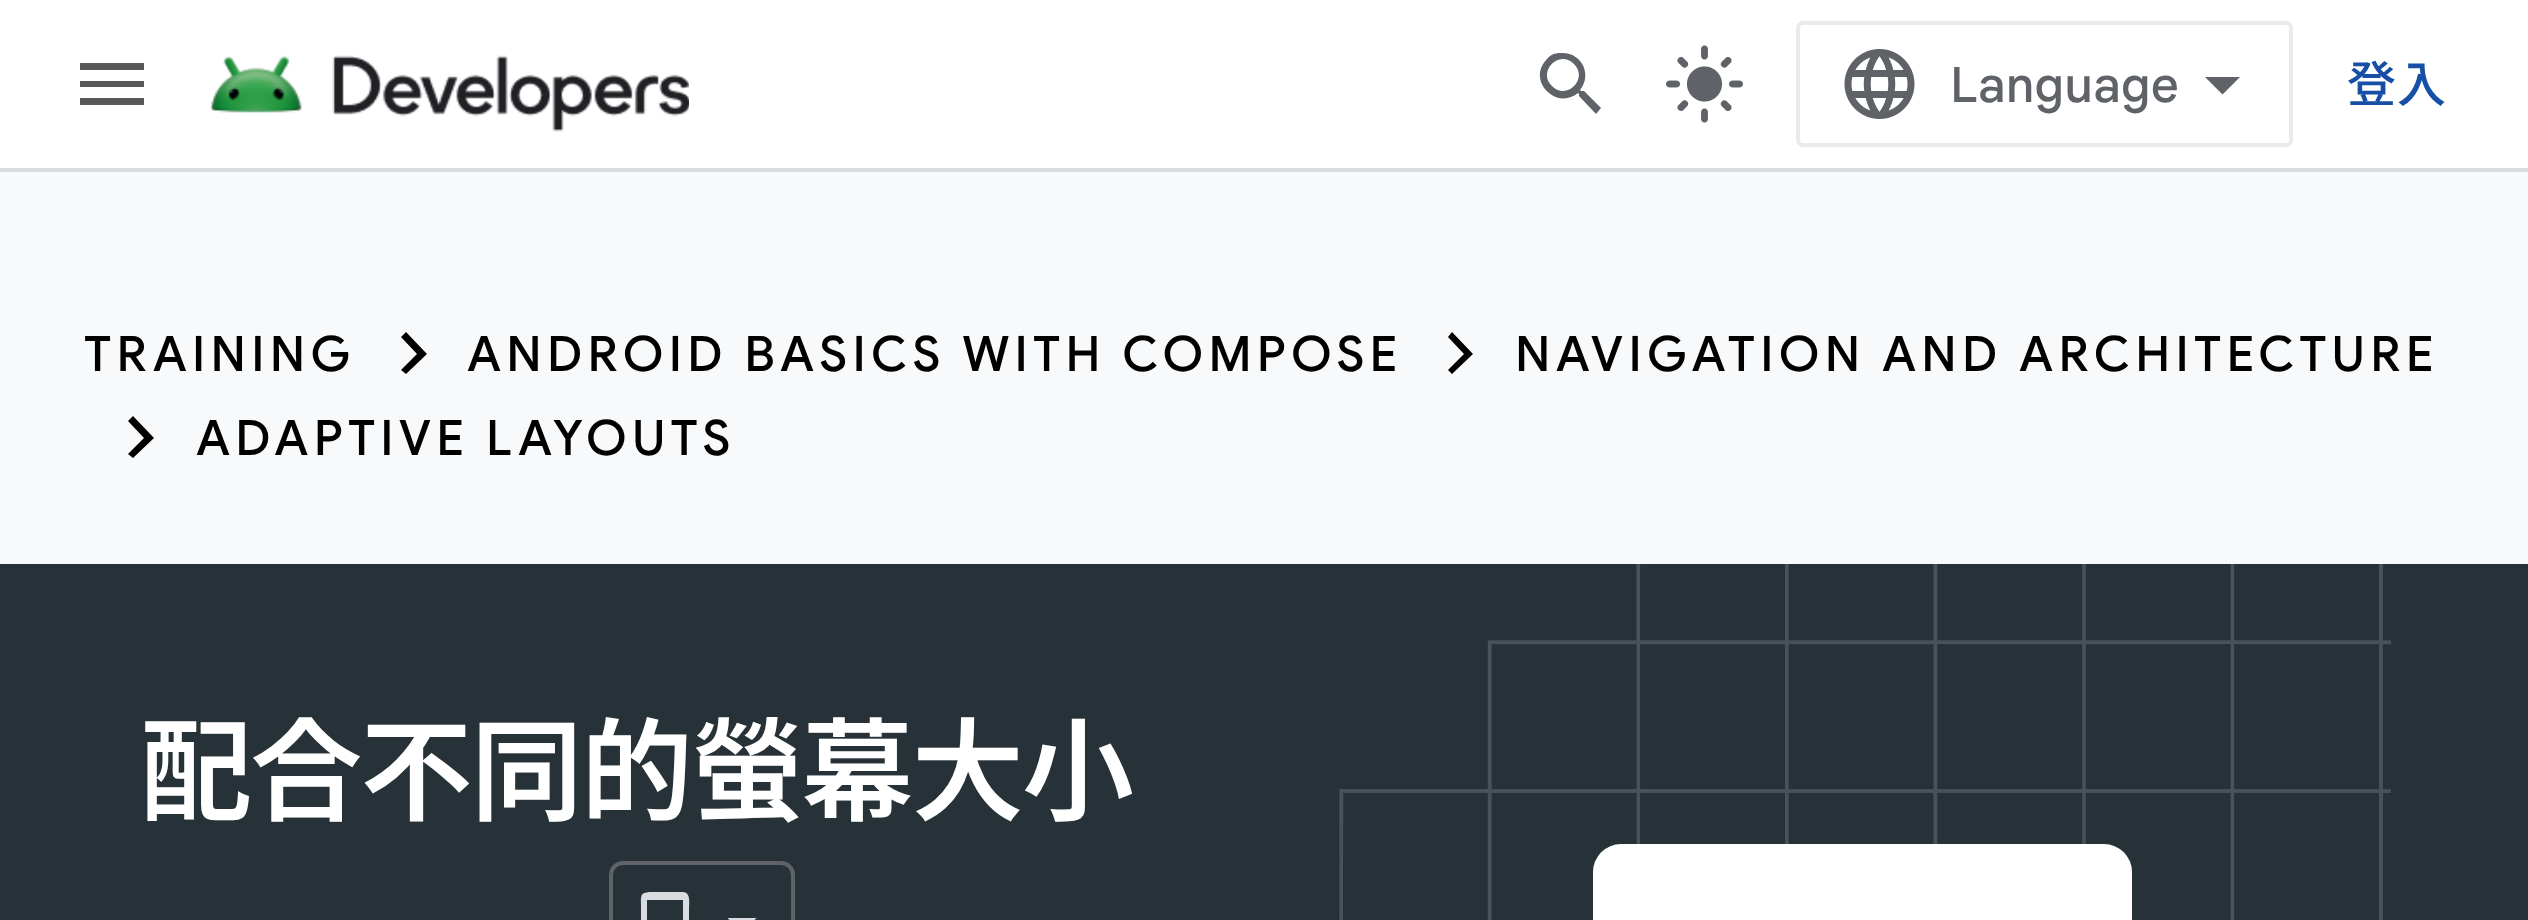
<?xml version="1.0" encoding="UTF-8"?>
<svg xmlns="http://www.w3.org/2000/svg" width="2528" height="920">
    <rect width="100%" height="100%" fill="#FFFFFF"/>
    <rect x="0" y="168" width="2528" height="4" fill="#DADCE0"/>
    <path d="M 80 63 H 144 V 70 H 80 Z M 80 87 V 81 H 144 V 87 Z M 80 105 V 98 H 144 V 105 Z" fill="#595959"/>
    <image x="210" y="55" width="479" height="77" href="img_01.png"/>
    <path d="M 1552 86 C 1566 101 1589 79 1574 64 C 1559 49 1537 72 1552 86 Z M 1584 91 L 1601 108 L 1596 114 L 1579 96 V 94 L 1578 93 C 1556 111 1526 80 1547 59 C 1550 55 1555 53 1560 53 C 1581 51 1593 74 1580 90 L 1581 91 Z" fill="#5F6368"/>
    <image x="1666" y="45" width="77" height="78" href="img_02.png"/>
    <rect x="1798" y="23" width="493" height="122" rx="5" fill="none" stroke="#E8EAED" stroke-width="4"/>
    <image x="1844" y="49" width="71" height="70" href="img_03.png"/>
    <text x="1950" y="102" font-family="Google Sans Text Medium" font-size="49" font-weight="500" fill="#5F6368">Language</text>
    <path d="M 2222.5 94.5 L 2205 77 H 2240 Z" fill="#5F6368"/>
    <text x="2347" y="102" font-family="Noto Sans JP" font-size="49" font-weight="500" letter-spacing="1" fill="#174EA6">登入</text>
    <rect x="0" y="172" width="2528" height="392" fill="#F8F9FA"/>
    <text x="84" y="371" font-family="Google Sans" font-size="49" font-weight="500" letter-spacing="5.25" fill="#000000">TRAINING</text>
    <path d="M 406 332 L 427 354 L 406 374 L 401 370 L 417 354 L 401 337 Z" fill="#000000"/>
    <text x="467" y="371" font-family="Google Sans" font-size="49" font-weight="500" letter-spacing="5.25" fill="#000000">ANDROID BASICS WITH COMPOSE</text>
    <path d="M 1452 332 L 1473 354 L 1452 374 L 1448 370 L 1464 354 L 1448 337 Z" fill="#000000"/>
    <text x="1515" y="371" font-family="Google Sans" font-size="49" font-weight="500" letter-spacing="5.25" fill="#000000">NAVIGATION AND ARCHITECTURE</text>
    <path d="M 133 416 L 154 438 L 133 458 L 128 454 L 144 438 L 128 421 Z" fill="#000000"/>
    <text x="196" y="455" font-family="Google Sans" font-size="49" font-weight="500" letter-spacing="5.25" fill="#000000">ADAPTIVE LAYOUTS</text>
    <rect x="0" y="564" width="2528" height="356" fill="#263238"/>
    <text x="140" y="812" font-family="Noto Sans JP" font-size="112" font-weight="600" letter-spacing="-1.75" fill="#FFFFFF">配合不同的螢幕大小</text>
    <rect x="611" y="863" width="182" height="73" rx="12" fill="none" stroke="#5F6368" stroke-width="4"/>
    <path d="M 683 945 V 900 H 647 V 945 L 665 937 Z M 683 892 C 691 892 689 904 689 909 V 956 L 665 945 L 641 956 V 909 C 641 895 639 892 653 892 Z" fill="#DADCE0"/>
    <path d="M 727.5 918 H 756.5 L 742 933 Z" fill="#DADCE0"/>
    <image x="1339" y="564" width="1052" height="356" href="img_04.png"/>
    <rect x="1593" y="844" width="539" height="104" rx="28" fill="#FFFFFF"/>
</svg>
